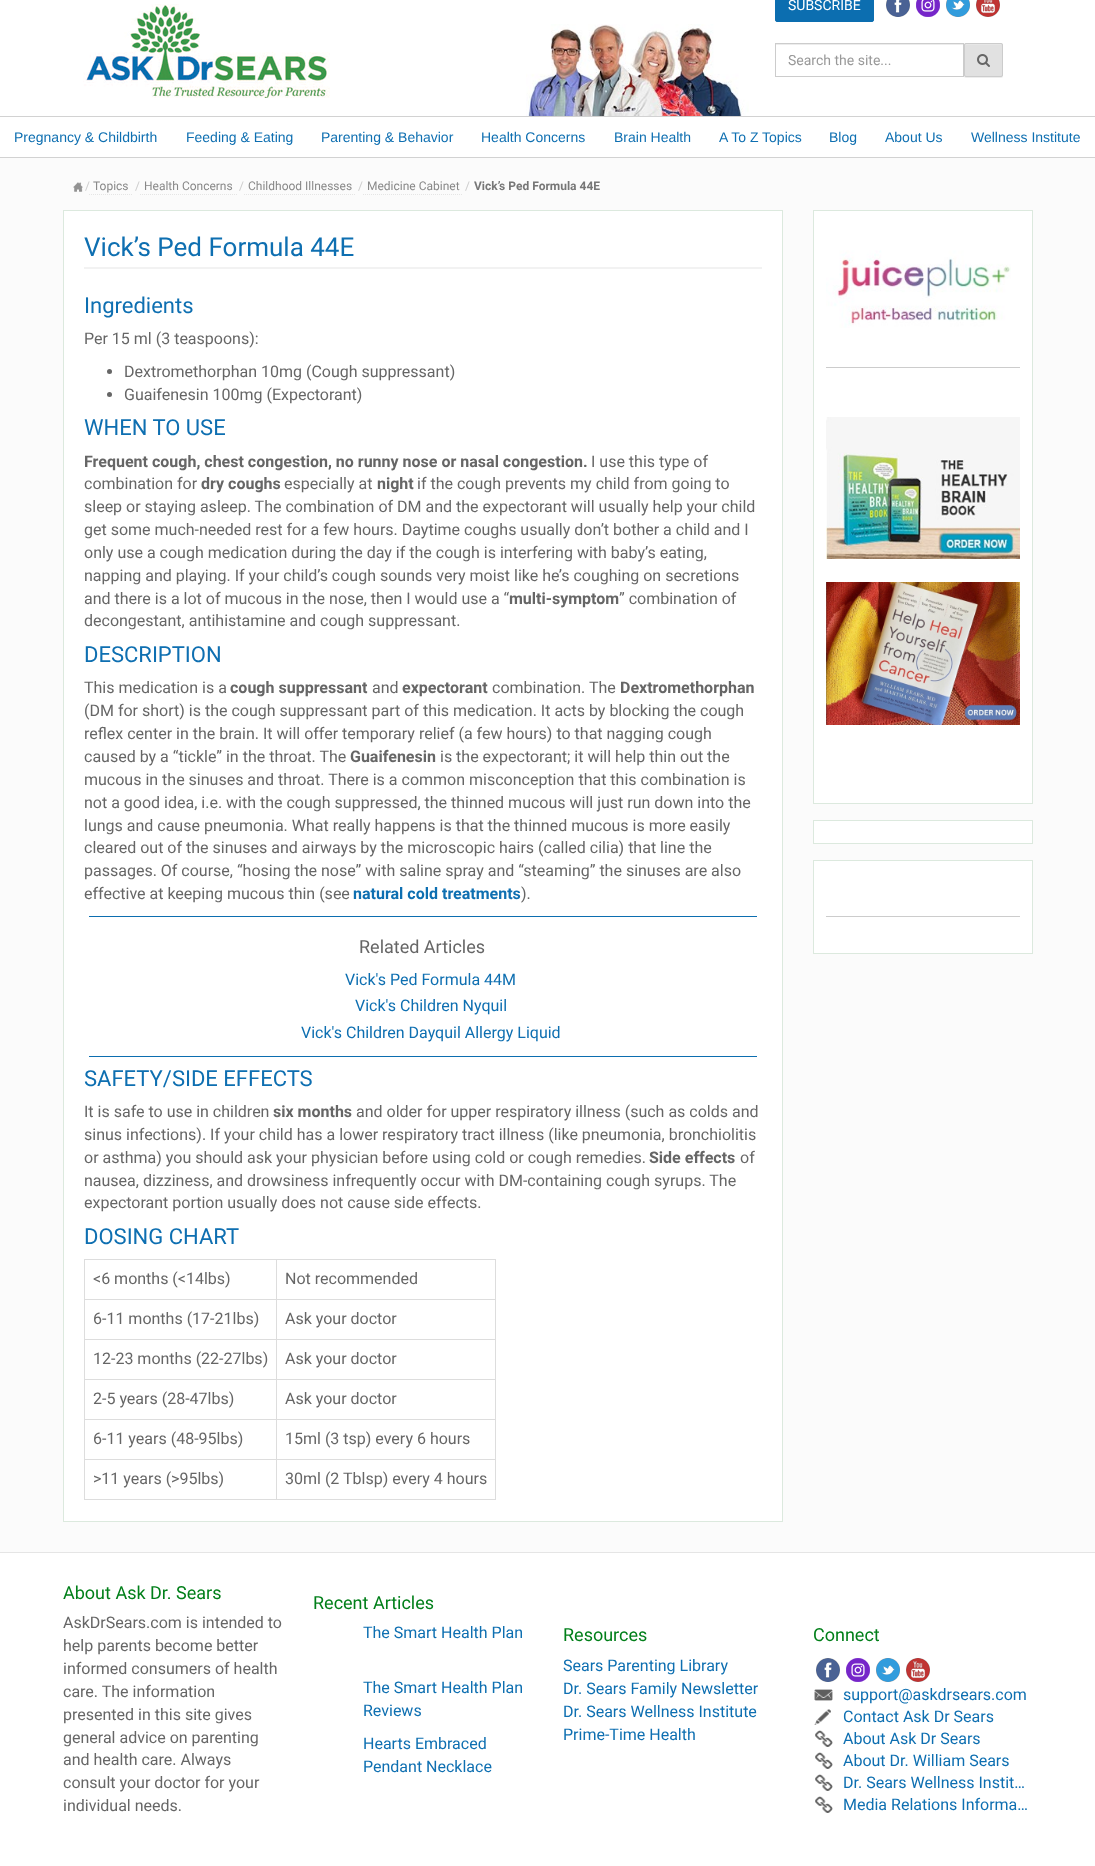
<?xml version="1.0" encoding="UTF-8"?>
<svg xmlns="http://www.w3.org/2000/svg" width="1095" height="1866">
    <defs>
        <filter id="blur1" x="-50%" y="-200%" width="200%" height="500%"><feGaussianBlur stdDeviation="0.5"/></filter>
    </defs>
    <rect width="100%" height="100%" fill="#FFFFFF"/>
    <rect x="0" y="157" width="1095" height="1" fill="#D2D2D2"/>
    <image x="83" y="4" width="247" height="94" href="img_01.png"/>
    <rect x="775.5" y="-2.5" width="98" height="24" rx="1.5" fill="#0C6EB0" stroke="#0C6EB0"/>
    <text x="788" y="10" font-family="Roboto" font-size="14" fill="#FFFFFF">SUBSCRIBE</text>
    <image x="526" y="24" width="223" height="92" href="img_02.png"/>
    <rect x="964" y="44" width="39" height="34" rx="2" fill="#000000" fill-opacity="0.07" filter="url(#blur1)"/>
    <rect x="776" y="44" width="187" height="1" fill="#ECECEC"/>
    <rect x="775.5" y="43.5" width="188" height="33" fill="none" stroke="#CCCCCC"/>
    <text x="788" y="65" font-family="Roboto" font-size="14" fill="#999999">Search the site...</text>
    <rect x="964" y="43" width="39" height="34" rx="2" fill="#E1E1E1"/>
    <path d="M 966 45 H 1001.5 C 1002 45 1002 45.5 1002 46 C 1002 42.5 999.5 44 995 44 H 972 C 966.5 44 965 42.5 965 46.5 C 965 45.5 965.5 45 966 45 Z" fill="#E6E6E6"/>
    <rect x="964.5" y="43.5" width="38" height="33" rx="1.5" fill="none" stroke="#CCCCCC"/>
    <image x="977" y="54" width="13" height="13" href="img_03.png"/>
    <image x="886" y="0" width="24" height="17" href="img_04.png"/>
    <image x="916" y="0" width="24" height="17" href="img_05.png"/>
    <image x="946" y="0" width="24" height="17" href="img_06.png"/>
    <image x="976" y="0" width="24" height="17" href="img_07.png"/>
    <rect x="0" y="116" width="1095" height="1" fill="#D2D2D2"/>
    <text x="14" y="142" font-family="Liberation Sans" font-size="14" fill="#0E6FB1">Pregnancy &amp; Childbirth</text>
    <text x="186" y="142" font-family="Liberation Sans" font-size="14" fill="#0E6FB1">Feeding &amp; Eating</text>
    <text x="321" y="142" font-family="Liberation Sans" font-size="14" fill="#0E6FB1">Parenting &amp; Behavior</text>
    <text x="481" y="142" font-family="Liberation Sans" font-size="14" fill="#0E6FB1">Health Concerns</text>
    <text x="614" y="142" font-family="Liberation Sans" font-size="14" fill="#0E6FB1">Brain Health</text>
    <text x="719" y="142" font-family="Liberation Sans" font-size="14" fill="#0E6FB1">A To Z Topics</text>
    <text x="829" y="142" font-family="Liberation Sans" font-size="14" fill="#0E6FB1">Blog</text>
    <text x="885" y="142" font-family="Liberation Sans" font-size="14" fill="#0E6FB1">About Us</text>
    <text x="971" y="142" font-family="Liberation Sans" font-size="14" fill="#0E6FB1">Wellness Institute</text>
    <rect x="0" y="158" width="1095" height="1394" fill="#FBFBFB"/>
    <image x="73" y="182" width="10" height="10" href="img_08.png"/>
    <text x="85" y="190" font-family="Roboto" font-size="12" fill="#CCCCCC">/</text>
    <text x="93" y="190" font-family="Roboto" font-size="12" fill="#888888">Topics</text>
    <path d="M 89 194.5 H 133" fill="none" stroke="#E5E5E5" stroke-dasharray="1 1"/>
    <text x="135" y="190" font-family="Roboto" font-size="12" fill="#CCCCCC">/</text>
    <text x="144" y="190" font-family="Roboto" font-size="12" fill="#888888">Health Concerns</text>
    <path d="M 140 194.5 H 237" fill="none" stroke="#E5E5E5" stroke-dasharray="1 1"/>
    <text x="239" y="190" font-family="Roboto" font-size="12" fill="#CCCCCC">/</text>
    <text x="248" y="190" font-family="Roboto" font-size="12" fill="#888888">Childhood Illnesses</text>
    <path d="M 244 194.5 H 356" fill="none" stroke="#E5E5E5" stroke-dasharray="1 1"/>
    <text x="358" y="190" font-family="Roboto" font-size="12" fill="#CCCCCC">/</text>
    <text x="367" y="190" font-family="Roboto" font-size="12" fill="#888888">Medicine Cabinet</text>
    <path d="M 363 194.5 H 463" fill="none" stroke="#E5E5E5" stroke-dasharray="1 1"/>
    <text x="465" y="190" font-family="Roboto" font-size="12" fill="#CCCCCC">/</text>
    <text x="474" y="190" font-family="Roboto" font-size="12" font-weight="700" fill="#777777">Vick’s Ped Formula 44E</text>
    <rect x="63.5" y="210.5" width="719" height="1311" fill="#FFFFFF" stroke="#DCE9DE"/>
    <rect x="84" y="267" width="678" height="2" fill="#F2F2F2"/>
    <text x="84" y="256" font-family="Roboto" font-size="26" fill="#0E6FB1">Vick’s Ped Formula 44E</text>
    <text x="84" y="313" font-family="Roboto" font-size="22" fill="#0E6FB1">Ingredients</text>
    <text x="84" y="344" font-family="Roboto" font-size="16" fill="#666666">Per 15 ml (3 teaspoons):</text>
    <circle cx="109.5" cy="371.5" r="2.5" fill="#666666"/>
    <text x="124" y="377" font-family="Roboto" font-size="16" fill="#666666">Dextromethorphan 10mg (Cough suppressant)</text>
    <circle cx="109.5" cy="394.5" r="2.5" fill="#666666"/>
    <text x="124" y="400" font-family="Roboto" font-size="16" fill="#666666">Guaifenesin 100mg (Expectorant)</text>
    <text x="84" y="435" font-family="Roboto" font-size="22" fill="#0E6FB1">WHEN TO USE</text>
    <text x="84" y="467" font-family="Roboto" font-size="16" font-weight="700" fill="#666666">Frequent cough, chest congestion, no runny nose or nasal congestion.</text>
    <text x="591" y="467" font-family="Roboto" font-size="16" fill="#666666">I use this type of</text>
    <text x="84" y="489" font-family="Roboto" font-size="16" fill="#666666">combination for</text>
    <text x="201" y="489" font-family="Roboto" font-size="16" font-weight="700" fill="#666666">dry coughs</text>
    <text x="284" y="489" font-family="Roboto" font-size="16" fill="#666666">especially at</text>
    <text x="377" y="489" font-family="Roboto" font-size="16" font-weight="700" fill="#666666">night</text>
    <text x="417" y="489" font-family="Roboto" font-size="16" fill="#666666">if the cough prevents my child from going to</text>
    <text font-family="Roboto" font-size="16" fill="#666666">
        <tspan x="84" y="512">sleep or staying asleep. The combination of DM and the expectorant will usually help your child</tspan>
        <tspan x="84" y="535">get some much-needed rest for a few hours. Daytime coughs usually don’t bother a child and I</tspan>
        <tspan x="84" y="558">only use a cough medication during the day if the cough is interfering with baby’s eating,</tspan>
        <tspan x="84" y="581">napping and playing. If your child’s cough sounds very moist like he’s coughing on secretions</tspan>
        <tspan x="84" y="604">and there is a lot of mucous in the nose, then I would use a “</tspan>
    </text>
    <text x="509" y="604" font-family="Roboto" font-size="16" font-weight="700" fill="#666666">multi-symptom</text>
    <text x="619" y="604" font-family="Roboto" font-size="16" fill="#666666">” combination of</text>
    <text x="84" y="626" font-family="Roboto" font-size="16" fill="#666666">decongestant, antihistamine and cough suppressant.</text>
    <text x="84" y="662" font-family="Roboto" font-size="22" fill="#0E6FB1">DESCRIPTION</text>
    <text x="84" y="693" font-family="Roboto" font-size="16" fill="#666666">This medication is a</text>
    <text x="230" y="693" font-family="Roboto" font-size="16" font-weight="700" fill="#666666">cough suppressant</text>
    <text x="372" y="693" font-family="Roboto" font-size="16" fill="#666666">and</text>
    <text x="402" y="693" font-family="Roboto" font-size="16" font-weight="700" fill="#666666">expectorant</text>
    <text x="492" y="693" font-family="Roboto" font-size="16" fill="#666666">combination. The</text>
    <text x="620" y="693" font-family="Roboto" font-size="16" font-weight="700" fill="#666666">Dextromethorphan</text>
    <text font-family="Roboto" font-size="16" fill="#666666">
        <tspan x="84" y="716">(DM for short) is the cough suppressant part of this medication. It acts by blocking the cough</tspan>
        <tspan x="84" y="739">reflex center in the brain. It will offer temporary relief (a few hours) to that nagging cough</tspan>
        <tspan x="84" y="762">caused by a “tickle” in the throat. The</tspan>
    </text>
    <text x="350" y="762" font-family="Roboto" font-size="16" font-weight="700" fill="#666666">Guaifenesin</text>
    <text x="440" y="762" font-family="Roboto" font-size="16" fill="#666666">is the expectorant; it will help thin out the</text>
    <text font-family="Roboto" font-size="16" fill="#666666">
        <tspan x="84" y="785">mucous in the sinuses and throat. There is a common misconception that this combination is</tspan>
        <tspan x="84" y="808">not a good idea, i.e. with the cough suppressed, the thinned mucous will just run down into the</tspan>
        <tspan x="84" y="831">lungs and cause pneumonia. What really happens is that the thinned mucous is more easily</tspan>
        <tspan x="84" y="853">cleared out of the sinuses and airways by the microscopic hairs (called cilia) that line the</tspan>
        <tspan x="84" y="876">passages. Of course, “hosing the nose” with saline spray and “steaming” the sinuses are also</tspan>
        <tspan x="84" y="899">effective at keeping mucous thin (see</tspan>
    </text>
    <text x="353" y="899" font-family="Roboto" font-size="16" font-weight="700" fill="#0E6FB1">natural cold treatments</text>
    <text x="521" y="899" font-family="Roboto" font-size="16" fill="#666666">).</text>
    <rect x="89" y="916" width="668" height="1" fill="#0C6EB0"/>
    <rect x="89" y="1056" width="668" height="1" fill="#0C6EB0"/>
    <text x="359" y="953" font-family="Roboto" font-size="18" fill="#666666">Related Articles</text>
    <text x="345" y="985" font-family="Roboto" font-size="16" fill="#0E6FB1">Vick's Ped Formula 44M</text>
    <text x="355" y="1011" font-family="Roboto" font-size="16" fill="#0E6FB1">Vick's Children Nyquil</text>
    <text x="301" y="1038" font-family="Roboto" font-size="16" fill="#0E6FB1">Vick's Children Dayquil Allergy Liquid</text>
    <text x="84" y="1086" font-family="Roboto" font-size="22" fill="#0E6FB1">SAFETY/SIDE EFFECTS</text>
    <text x="84" y="1117" font-family="Roboto" font-size="16" fill="#666666">It is safe to use in children</text>
    <text x="273" y="1117" font-family="Roboto" font-size="16" font-weight="700" fill="#666666">six months</text>
    <text x="356" y="1117" font-family="Roboto" font-size="16" fill="#666666">and older for upper respiratory illness (such as colds and</text>
    <text font-family="Roboto" font-size="16" fill="#666666">
        <tspan x="84" y="1140">sinus infections). If your child has a lower respiratory tract illness (like pneumonia, bronchiolitis</tspan>
        <tspan x="84" y="1163">or asthma) you should ask your physician before using cold or cough remedies.</tspan>
    </text>
    <text x="649" y="1163" font-family="Roboto" font-size="16" font-weight="700" fill="#666666">Side effects</text>
    <text x="740" y="1163" font-family="Roboto" font-size="16" fill="#666666">of</text>
    <text font-family="Roboto" font-size="16" fill="#666666">
        <tspan x="84" y="1186">nausea, dizziness, and drowsiness infrequently occur with DM-containing cough syrups. The</tspan>
        <tspan x="84" y="1208">expectorant portion usually does not cause side effects.</tspan>
    </text>
    <text x="84" y="1244" font-family="Roboto" font-size="22" fill="#0E6FB1">DOSING CHART</text>
    <rect x="84" y="1259" width="412" height="1" fill="#DDDDDD"/>
    <rect x="495" y="1259" width="1" height="241" fill="#DDDDDD"/>
    <rect x="84" y="1499" width="412" height="1" fill="#DDDDDD"/>
    <rect x="84" y="1259" width="1" height="241" fill="#DDDDDD"/>
    <text x="93" y="1284" font-family="Roboto" font-size="16" fill="#666666">&lt;6 months (&lt;14lbs)</text>
    <rect x="276" y="1299" width="220" height="1" fill="#DDDDDD"/>
    <rect x="276" y="1339" width="220" height="1" fill="#DDDDDD"/>
    <rect x="276" y="1379" width="220" height="1" fill="#DDDDDD"/>
    <rect x="276" y="1419" width="220" height="1" fill="#DDDDDD"/>
    <rect x="276" y="1459" width="220" height="1" fill="#DDDDDD"/>
    <rect x="276" y="1459" width="1" height="41" fill="#DDDDDD"/>
    <rect x="84" y="1459" width="193" height="1" fill="#DDDDDD"/>
    <rect x="276" y="1419" width="1" height="41" fill="#DDDDDD"/>
    <rect x="84" y="1419" width="193" height="1" fill="#DDDDDD"/>
    <rect x="276" y="1379" width="1" height="41" fill="#DDDDDD"/>
    <rect x="84" y="1379" width="193" height="1" fill="#DDDDDD"/>
    <rect x="276" y="1339" width="1" height="41" fill="#DDDDDD"/>
    <rect x="84" y="1339" width="193" height="1" fill="#DDDDDD"/>
    <rect x="276" y="1299" width="1" height="41" fill="#DDDDDD"/>
    <rect x="84" y="1299" width="193" height="1" fill="#DDDDDD"/>
    <rect x="276" y="1259" width="1" height="41" fill="#DDDDDD"/>
    <text x="285" y="1284" font-family="Roboto" font-size="16" fill="#666666">Not recommended</text>
    <text x="93" y="1324" font-family="Roboto" font-size="16" fill="#666666">6-11 months (17-21lbs)</text>
    <text x="285" y="1324" font-family="Roboto" font-size="16" fill="#666666">Ask your doctor</text>
    <text x="93" y="1364" font-family="Roboto" font-size="16" fill="#666666">12-23 months (22-27lbs)</text>
    <text x="285" y="1364" font-family="Roboto" font-size="16" fill="#666666">Ask your doctor</text>
    <text x="93" y="1404" font-family="Roboto" font-size="16" fill="#666666">2-5 years (28-47lbs)</text>
    <text x="285" y="1404" font-family="Roboto" font-size="16" fill="#666666">Ask your doctor</text>
    <text x="93" y="1444" font-family="Roboto" font-size="16" fill="#666666">6-11 years (48-95lbs)</text>
    <text x="285" y="1444" font-family="Roboto" font-size="16" fill="#666666">15ml (3 tsp) every 6 hours</text>
    <text x="93" y="1484" font-family="Roboto" font-size="16" fill="#666666">&gt;11 years (&gt;95lbs)</text>
    <text x="285" y="1484" font-family="Roboto" font-size="16" fill="#666666">30ml (2 Tblsp) every 4 hours</text>
    <rect x="813.5" y="210.5" width="219" height="593" fill="#FFFFFF" stroke="#DCE9DE"/>
    <image x="826" y="250" width="185" height="78" href="img_09.png"/>
    <rect x="826" y="367" width="194" height="1" fill="#CCCCCC"/>
    <image x="826" y="417" width="194" height="142" href="img_10.png"/>
    <image x="826" y="582" width="194" height="143" href="img_11.png"/>
    <rect x="813.5" y="820.5" width="219" height="23" fill="#FFFFFF" stroke="#DCE9DE"/>
    <rect x="813.5" y="860.5" width="219" height="93" fill="#FFFFFF" stroke="#DCE9DE"/>
    <rect x="826" y="916" width="194" height="1" fill="#CCCCCC"/>
    <rect x="0" y="1552" width="1095" height="1" fill="#E5E5E5"/>
    <text x="63" y="1599" font-family="Roboto" font-size="18" fill="#017F19">About Ask Dr. Sears</text>
    <text font-family="Roboto" font-size="16" fill="#666666">
        <tspan x="63" y="1628">AskDrSears.com is intended to</tspan>
        <tspan x="63" y="1651">help parents become better</tspan>
        <tspan x="63" y="1674">informed consumers of health</tspan>
        <tspan x="63" y="1697">care. The information</tspan>
        <tspan x="63" y="1720">presented in this site gives</tspan>
        <tspan x="63" y="1743">general advice on parenting</tspan>
        <tspan x="63" y="1765">and health care. Always</tspan>
        <tspan x="63" y="1788">consult your doctor for your</tspan>
        <tspan x="63" y="1811">individual needs.</tspan>
    </text>
    <text x="313" y="1609" font-family="Roboto" font-size="18" fill="#017F19">Recent Articles</text>
    <text x="363" y="1638" font-family="Roboto" font-size="16" fill="#0E6FB1">The Smart Health Plan</text>
    <text font-family="Roboto" font-size="16" fill="#0E6FB1">
        <tspan x="363" y="1693">The Smart Health Plan</tspan>
        <tspan x="363" y="1716">Reviews</tspan>
    </text>
    <text font-family="Roboto" font-size="16" fill="#0E6FB1">
        <tspan x="363" y="1749">Hearts Embraced</tspan>
        <tspan x="363" y="1772">Pendant Necklace</tspan>
    </text>
    <text x="563" y="1641" font-family="Roboto" font-size="18" fill="#017F19">Resources</text>
    <text font-family="Roboto" font-size="16" fill="#0E6FB1">
        <tspan x="563" y="1671">Sears Parenting Library</tspan>
        <tspan x="563" y="1694">Dr. Sears Family Newsletter</tspan>
        <tspan x="563" y="1717">Dr. Sears Wellness Institute</tspan>
        <tspan x="563" y="1740">Prime-Time Health</tspan>
    </text>
    <text x="813" y="1641" font-family="Roboto" font-size="18" fill="#017F19">Connect</text>
    <image x="816" y="1658" width="24" height="24" href="img_12.png"/>
    <image x="846" y="1658" width="24" height="24" href="img_13.png"/>
    <image x="876" y="1658" width="24" height="24" href="img_14.png"/>
    <image x="906" y="1658" width="24" height="24" href="img_15.png"/>
    <image x="814" y="1689" width="19" height="12" href="img_16.png"/>
    <text x="843" y="1700" font-family="Roboto" font-size="16" fill="#0E6FB1">support@askdrsears.com</text>
    <image x="814" y="1709" width="17" height="16" href="img_17.png"/>
    <text x="843" y="1722" font-family="Roboto" font-size="16" fill="#0E6FB1">Contact Ask Dr Sears</text>
    <image x="815" y="1730" width="18" height="17" href="img_18.png"/>
    <text x="843" y="1744" font-family="Roboto" font-size="16" fill="#0E6FB1">About Ask Dr Sears</text>
    <image x="815" y="1752" width="18" height="17" href="img_18.png"/>
    <text x="843" y="1766" font-family="Roboto" font-size="16" fill="#0E6FB1">About Dr. William Sears</text>
    <image x="815" y="1774" width="18" height="17" href="img_18.png"/>
    <text x="843" y="1788" font-family="Roboto" font-size="16" fill="#0E6FB1">Dr. Sears Wellness Instit…</text>
    <image x="815" y="1796" width="18" height="17" href="img_18.png"/>
    <text x="843" y="1810" font-family="Roboto" font-size="16" fill="#0E6FB1">Media Relations Informa…</text>
</svg>
